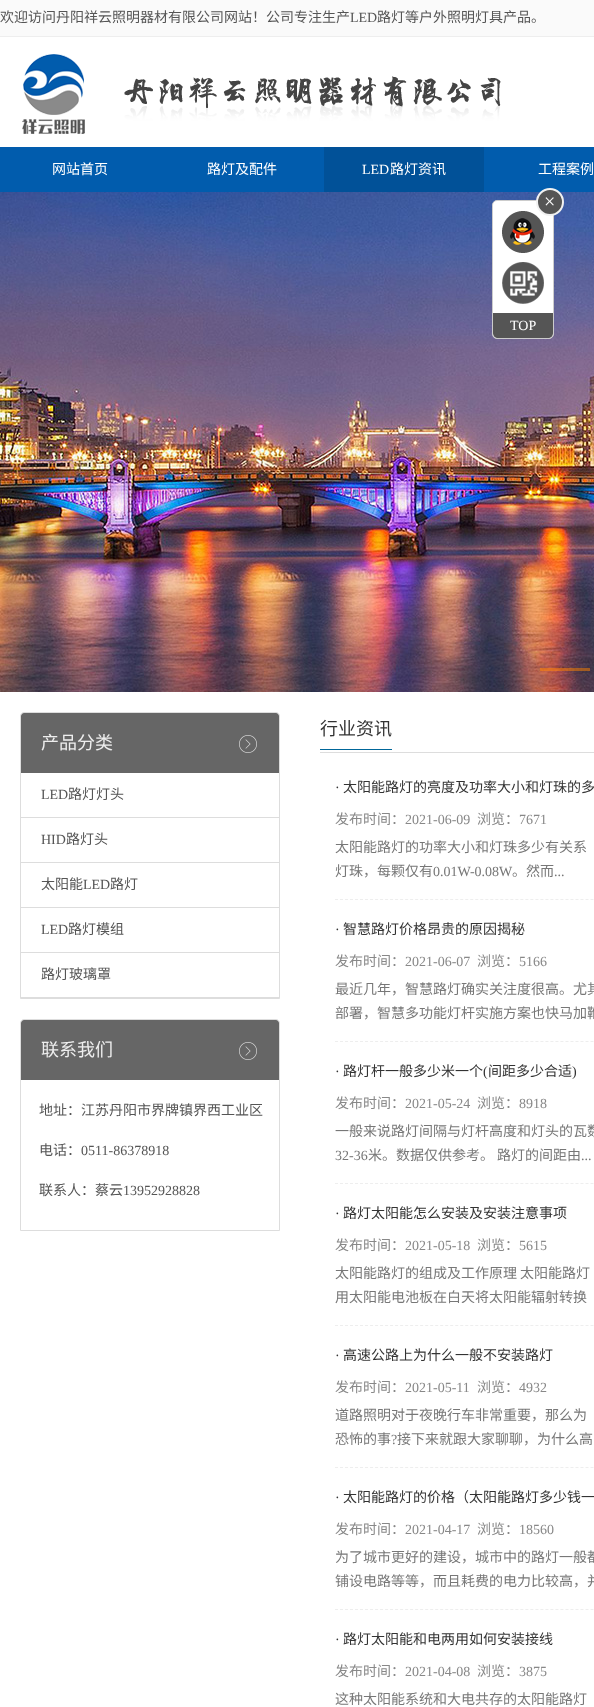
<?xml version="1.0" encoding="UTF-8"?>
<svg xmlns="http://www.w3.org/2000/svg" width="594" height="1707">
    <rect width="100%" height="100%" fill="#FFFFFF"/>
    <rect x="0" y="0" width="594" height="36" fill="#FAFAFA"/>
    <text x="0" y="22" font-family="Noto Sans CJK SC" font-size="14" fill="#555555">欢迎访问丹阳祥云照明器材有限公司网站！公司专注生产</text>
    <text x="350" y="22" font-family="Liberation Serif" font-size="14" fill="#555555">LED</text>
    <text x="377" y="22" font-family="Noto Sans CJK SC" font-size="14" fill="#555555">路灯等户外照明灯具产品。</text>
    <rect x="0" y="36" width="594" height="1" fill="#EEEEEE"/>
    <image x="22" y="54" width="479" height="80" href="img_01.png"/>
    <rect x="0" y="147" width="594" height="45" fill="#015CAD"/>
    <text x="52" y="174" font-family="Noto Sans CJK SC" font-size="14" fill="#FFFFFF">网站首页</text>
    <text x="207" y="174" font-family="Noto Sans CJK SC" font-size="14" fill="#FFFFFF">路灯及配件</text>
    <rect x="324" y="147" width="160" height="45" fill="#015198"/>
    <text x="362" y="174" font-family="Liberation Serif" font-size="14" fill="#FFFFFF">LED</text>
    <text x="390" y="174" font-family="Noto Sans CJK SC" font-size="14" fill="#FFFFFF">路灯资讯</text>
    <text x="538" y="174" font-family="Noto Sans CJK SC" font-size="14" fill="#FFFFFF">工程案例</text>
    <image x="0" y="192" width="594" height="500" href="img_02.png"/>
    <rect x="540" y="668" width="50" height="3" fill="#FF8400" fill-opacity="0.5"/>
    <rect x="492.5" y="200.5" width="61" height="138" rx="4.5" fill="#FFFFFF" stroke="#CCCCCC"/>
    <image x="502" y="211" width="42" height="42" href="img_03.png"/>
    <circle cx="550" cy="202" r="13" fill="#555555" stroke="#F1F1F1" stroke-width="2"/>
    <text x="544" y="208" font-family="Liberation Serif" font-size="20" fill="#FFFFFF">×</text>
    <image x="502" y="262" width="42" height="42" href="img_04.png"/>
    <path d="M 493 313 H 553 V 333 C 553 336 551 338 548 338 H 498 C 495 338 493 336 493 333 Z" fill="#555555"/>
    <text x="510" y="330" font-family="Liberation Serif" font-size="14" fill="#FFFFFF">TOP</text>
    <path d="M 24 712.5 H 276 C 278 712.5 279.5 714 279.5 716 V 998.5 H 20.5 V 716 C 20.5 714 22 712.5 24 712.5 Z" fill="none" stroke="#DDDDDD"/>
    <path d="M 24 713 H 276 C 277.5 713 279 714.5 279 716 V 773 H 21 V 716 C 21 714.5 22.5 713 24 713 Z" fill="#666666"/>
    <image x="239" y="735" width="18" height="18" href="img_05.png"/>
    <text x="41" y="749" font-family="Noto Sans CJK SC" font-size="18" fill="#EEEEEE">产品分类</text>
    <rect x="21" y="817" width="258" height="1" fill="#DDDDDD"/>
    <text x="41" y="799" font-family="Liberation Serif" font-size="14" fill="#555555">LED</text>
    <text x="68" y="799" font-family="Noto Sans CJK SC" font-size="14" fill="#555555">路灯灯头</text>
    <rect x="21" y="862" width="258" height="1" fill="#DDDDDD"/>
    <text x="41" y="844" font-family="Liberation Serif" font-size="14" fill="#555555">HID</text>
    <text x="66" y="844" font-family="Noto Sans CJK SC" font-size="14" fill="#555555">路灯头</text>
    <rect x="21" y="907" width="258" height="1" fill="#DDDDDD"/>
    <text x="41" y="889" font-family="Noto Sans CJK SC" font-size="14" fill="#555555">太阳能</text>
    <text x="83" y="889" font-family="Liberation Serif" font-size="14" fill="#555555">LED</text>
    <text x="110" y="889" font-family="Noto Sans CJK SC" font-size="14" fill="#555555">路灯</text>
    <rect x="21" y="952" width="258" height="1" fill="#DDDDDD"/>
    <text x="41" y="934" font-family="Liberation Serif" font-size="14" fill="#555555">LED</text>
    <text x="68" y="934" font-family="Noto Sans CJK SC" font-size="14" fill="#555555">路灯模组</text>
    <rect x="21" y="997" width="258" height="1" fill="#DDDDDD"/>
    <text x="41" y="979" font-family="Noto Sans CJK SC" font-size="14" fill="#555555">路灯玻璃罩</text>
    <path d="M 24 1019.5 H 276 C 278 1019.5 279.5 1021 279.5 1023 V 1230.5 H 20.5 V 1023 C 20.5 1021 22 1019.5 24 1019.5 Z" fill="none" stroke="#DDDDDD"/>
    <path d="M 24 1020 H 276 C 277.5 1020 279 1021.5 279 1023 V 1080 H 21 V 1023 C 21 1021.5 22.5 1020 24 1020 Z" fill="#666666"/>
    <image x="239" y="1042" width="18" height="18" href="img_05.png"/>
    <text x="41" y="1056" font-family="Noto Sans CJK SC" font-size="18" fill="#EEEEEE">联系我们</text>
    <text x="39" y="1115" font-family="Noto Sans CJK SC" font-size="14" fill="#555555">地址：江苏丹阳市界牌镇界西工业区</text>
    <text x="39" y="1155" font-family="Noto Sans CJK SC" font-size="14" fill="#555555">电话：</text>
    <text x="81" y="1155" font-family="Liberation Serif" font-size="14" fill="#555555">0511-86378918</text>
    <text x="39" y="1195" font-family="Noto Sans CJK SC" font-size="14" fill="#555555">联系人：蔡云</text>
    <text x="123" y="1195" font-family="Liberation Serif" font-size="14" fill="#555555">13952928828</text>
    <rect x="320" y="752" width="274" height="1" fill="#DDDDDD"/>
    <text x="320" y="735" font-family="Noto Sans CJK SC" font-size="18" fill="#333333">行业资讯</text>
    <rect x="320" y="749" width="72" height="1" fill="#006699"/>
    <path d="M 335 899.5 H 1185" fill="none" stroke="#EEEEEE" stroke-dasharray="3 2.01"/>
    <text x="335" y="792" font-family="Liberation Serif" font-size="14" fill="#333333">·</text>
    <text x="343" y="792" font-family="Noto Sans CJK SC" font-size="14" fill="#333333">太阳能路灯的亮度及功率大小和灯珠的多</text>
    <text x="335" y="824" font-family="Noto Sans CJK SC" font-size="14" fill="#888888">发布时间：</text>
    <text x="405" y="824" font-family="Liberation Serif" font-size="14" fill="#888888">2021-06-09</text>
    <text x="477" y="824" font-family="Noto Sans CJK SC" font-size="14" fill="#888888">浏览：</text>
    <text x="519" y="824" font-family="Liberation Serif" font-size="14" fill="#888888">7671</text>
    <text font-family="Noto Sans CJK SC" font-size="14" fill="#777777">
        <tspan x="335" y="852">太阳能路灯的功率大小和灯珠多少有关系</tspan>
        <tspan x="335" y="876">灯珠，每颗仅有</tspan>
    </text>
    <text x="433" y="876" font-family="Liberation Serif" font-size="14" fill="#777777">0.01W-0.08W</text>
    <text x="512" y="876" font-family="Noto Sans CJK SC" font-size="14" fill="#777777">。然而</text>
    <text x="554" y="876" font-family="Liberation Serif" font-size="14" fill="#777777">...</text>
    <path d="M 335 1041.5 H 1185" fill="none" stroke="#EEEEEE" stroke-dasharray="3 2.01"/>
    <text x="335" y="934" font-family="Liberation Serif" font-size="14" fill="#333333">·</text>
    <text x="343" y="934" font-family="Noto Sans CJK SC" font-size="14" fill="#333333">智慧路灯价格昂贵的原因揭秘</text>
    <text x="335" y="966" font-family="Noto Sans CJK SC" font-size="14" fill="#888888">发布时间：</text>
    <text x="405" y="966" font-family="Liberation Serif" font-size="14" fill="#888888">2021-06-07</text>
    <text x="477" y="966" font-family="Noto Sans CJK SC" font-size="14" fill="#888888">浏览：</text>
    <text x="519" y="966" font-family="Liberation Serif" font-size="14" fill="#888888">5166</text>
    <text font-family="Noto Sans CJK SC" font-size="14" fill="#777777">
        <tspan x="335" y="994">最近几年，智慧路灯确实关注度很高。尤其</tspan>
        <tspan x="335" y="1018">部署，智慧多功能灯杆实施方案也快马加鞭</tspan>
    </text>
    <path d="M 335 1183.5 H 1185" fill="none" stroke="#EEEEEE" stroke-dasharray="3 2.01"/>
    <text x="335" y="1076" font-family="Liberation Serif" font-size="14" fill="#333333">·</text>
    <text x="343" y="1076" font-family="Noto Sans CJK SC" font-size="14" fill="#333333">路灯杆一般多少米一个</text>
    <text x="483" y="1076" font-family="Liberation Serif" font-size="14" fill="#333333">(</text>
    <text x="488" y="1076" font-family="Noto Sans CJK SC" font-size="14" fill="#333333">间距多少合适</text>
    <text x="572" y="1076" font-family="Liberation Serif" font-size="14" fill="#333333">)</text>
    <text x="335" y="1108" font-family="Noto Sans CJK SC" font-size="14" fill="#888888">发布时间：</text>
    <text x="405" y="1108" font-family="Liberation Serif" font-size="14" fill="#888888">2021-05-24</text>
    <text x="477" y="1108" font-family="Noto Sans CJK SC" font-size="14" fill="#888888">浏览：</text>
    <text x="519" y="1108" font-family="Liberation Serif" font-size="14" fill="#888888">8918</text>
    <text x="335" y="1136" font-family="Noto Sans CJK SC" font-size="14" fill="#777777">一般来说路灯间隔与灯杆高度和灯头的瓦数</text>
    <text x="335" y="1160" font-family="Liberation Serif" font-size="14" fill="#777777">32-36</text>
    <text x="368" y="1160" font-family="Noto Sans CJK SC" font-size="14" fill="#777777">米。数据仅供参考。</text>
    <text x="497" y="1160" font-family="Noto Sans CJK SC" font-size="14" fill="#777777">路灯的间距由</text>
    <text x="581" y="1160" font-family="Liberation Serif" font-size="14" fill="#777777">...</text>
    <path d="M 335 1325.5 H 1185" fill="none" stroke="#EEEEEE" stroke-dasharray="3 2.01"/>
    <text x="335" y="1218" font-family="Liberation Serif" font-size="14" fill="#333333">·</text>
    <text x="343" y="1218" font-family="Noto Sans CJK SC" font-size="14" fill="#333333">路灯太阳能怎么安装及安装注意事项</text>
    <text x="335" y="1250" font-family="Noto Sans CJK SC" font-size="14" fill="#888888">发布时间：</text>
    <text x="405" y="1250" font-family="Liberation Serif" font-size="14" fill="#888888">2021-05-18</text>
    <text x="477" y="1250" font-family="Noto Sans CJK SC" font-size="14" fill="#888888">浏览：</text>
    <text x="519" y="1250" font-family="Liberation Serif" font-size="14" fill="#888888">5615</text>
    <text x="335" y="1278" font-family="Noto Sans CJK SC" font-size="14" fill="#777777">太阳能路灯的组成及工作原理</text>
    <text x="520" y="1278" font-family="Noto Sans CJK SC" font-size="14" fill="#777777">太阳能路灯</text>
    <text x="335" y="1302" font-family="Noto Sans CJK SC" font-size="14" fill="#777777">用太阳能电池板在白天将太阳能辐射转换</text>
    <path d="M 335 1467.5 H 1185" fill="none" stroke="#EEEEEE" stroke-dasharray="3 2.01"/>
    <text x="335" y="1360" font-family="Liberation Serif" font-size="14" fill="#333333">·</text>
    <text x="343" y="1360" font-family="Noto Sans CJK SC" font-size="14" fill="#333333">高速公路上为什么一般不安装路灯</text>
    <text x="335" y="1392" font-family="Noto Sans CJK SC" font-size="14" fill="#888888">发布时间：</text>
    <text x="405" y="1392" font-family="Liberation Serif" font-size="14" fill="#888888">2021-05-11</text>
    <text x="477" y="1392" font-family="Noto Sans CJK SC" font-size="14" fill="#888888">浏览：</text>
    <text x="519" y="1392" font-family="Liberation Serif" font-size="14" fill="#888888">4932</text>
    <text font-family="Noto Sans CJK SC" font-size="14" fill="#777777">
        <tspan x="335" y="1420">道路照明对于夜晚行车非常重要，那么为</tspan>
        <tspan x="335" y="1444">恐怖的事</tspan>
    </text>
    <text x="391" y="1444" font-family="Liberation Serif" font-size="14" fill="#777777">?</text>
    <text x="397" y="1444" font-family="Noto Sans CJK SC" font-size="14" fill="#777777">接下来就跟大家聊聊，为什么高</text>
    <path d="M 335 1609.5 H 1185" fill="none" stroke="#EEEEEE" stroke-dasharray="3 2.01"/>
    <text x="335" y="1502" font-family="Liberation Serif" font-size="14" fill="#333333">·</text>
    <text x="343" y="1502" font-family="Noto Sans CJK SC" font-size="14" fill="#333333">太阳能路灯的价格（太阳能路灯多少钱一</text>
    <text x="335" y="1534" font-family="Noto Sans CJK SC" font-size="14" fill="#888888">发布时间：</text>
    <text x="405" y="1534" font-family="Liberation Serif" font-size="14" fill="#888888">2021-04-17</text>
    <text x="477" y="1534" font-family="Noto Sans CJK SC" font-size="14" fill="#888888">浏览：</text>
    <text x="519" y="1534" font-family="Liberation Serif" font-size="14" fill="#888888">18560</text>
    <text font-family="Noto Sans CJK SC" font-size="14" fill="#777777">
        <tspan x="335" y="1562">为了城市更好的建设，城市中的路灯一般都</tspan>
        <tspan x="335" y="1586">铺设电路等等，而且耗费的电力比较高，并</tspan>
    </text>
    <text x="335" y="1644" font-family="Liberation Serif" font-size="14" fill="#333333">·</text>
    <text x="343" y="1644" font-family="Noto Sans CJK SC" font-size="14" fill="#333333">路灯太阳能和电两用如何安装接线</text>
    <text x="335" y="1676" font-family="Noto Sans CJK SC" font-size="14" fill="#888888">发布时间：</text>
    <text x="405" y="1676" font-family="Liberation Serif" font-size="14" fill="#888888">2021-04-08</text>
    <text x="477" y="1676" font-family="Noto Sans CJK SC" font-size="14" fill="#888888">浏览：</text>
    <text x="519" y="1676" font-family="Liberation Serif" font-size="14" fill="#888888">3875</text>
    <text x="335" y="1704" font-family="Noto Sans CJK SC" font-size="14" fill="#777777">这种太阳能系统和大电共存的太阳能路灯</text>
</svg>
